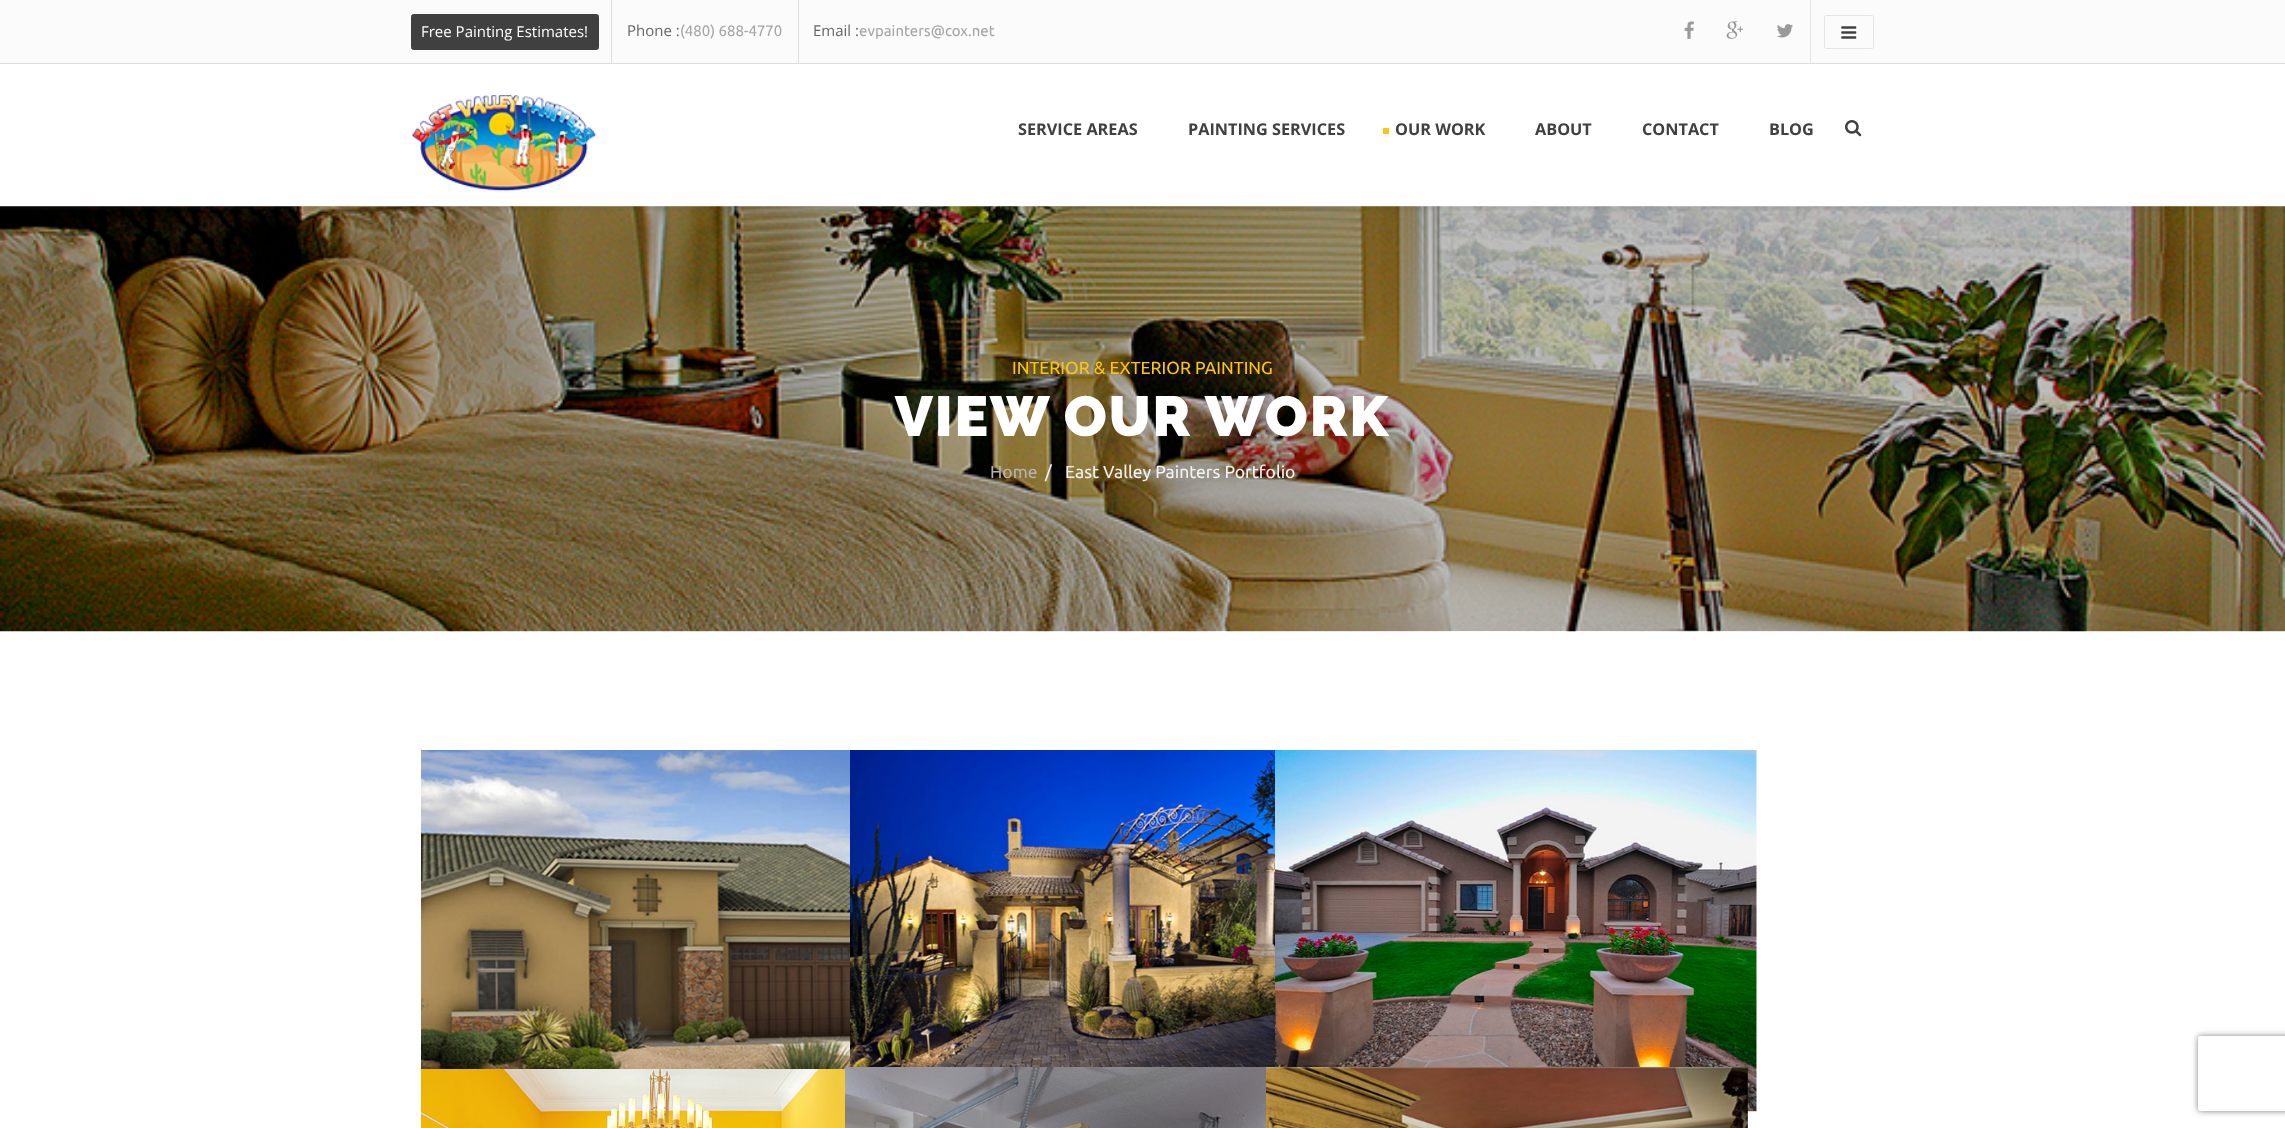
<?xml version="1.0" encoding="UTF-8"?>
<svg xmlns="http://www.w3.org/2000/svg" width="2285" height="1128">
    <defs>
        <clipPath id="clip1"><rect x="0" y="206" width="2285" height="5"/></clipPath>
        <filter id="blur1" x="-50%" y="-200%" width="200%" height="500%"><feGaussianBlur stdDeviation="1"/></filter>
        <clipPath id="clip2"><path d="M 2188 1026 H 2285 V 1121 H 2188 Z M 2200.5 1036 H 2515.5 C 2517 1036 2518 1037 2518 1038.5 V 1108.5 C 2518 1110 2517 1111 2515.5 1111 H 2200.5 C 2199 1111 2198 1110 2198 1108.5 V 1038.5 C 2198 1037 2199 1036 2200.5 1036 Z" clip-rule="evenodd"/></clipPath>
        <filter id="blur2" x="-50%" y="-200%" width="200%" height="500%"><feGaussianBlur stdDeviation="3"/></filter>
    </defs>
    <rect width="100%" height="100%" fill="#FFFFFF"/>
    <rect x="0" y="0" width="2285" height="63" fill="#FBFBFB"/>
    <rect x="0" y="63" width="2285" height="1" fill="#DEDEDE"/>
    <rect x="411.5" y="14.5" width="187" height="35" rx="2" fill="#404040" stroke="#404040"/>
    <text x="421" y="37" font-family="Open Sans" font-size="15" fill="#FFFFFF">Free Painting Estimates!</text>
    <rect x="611" y="0" width="1" height="63" fill="#DEDEDE"/>
    <text x="627" y="36" font-family="Open Sans" font-size="15" fill="#666666">Phone :</text>
    <text x="680" y="36" font-family="Ubuntu" font-size="15" fill="#A6A6A6">(480) 688-4770</text>
    <rect x="798" y="0" width="1" height="63" fill="#DEDEDE"/>
    <text x="813" y="36" font-family="Open Sans" font-size="15" fill="#666666">Email :</text>
    <text x="859" y="36" font-family="Ubuntu" font-size="15" fill="#A6A6A6">evpainters@cox.net</text>
    <rect x="1810" y="0" width="1" height="63" fill="#E5E5E5"/>
    <image x="1684" y="21" width="10" height="18" href="img_01.png"/>
    <image x="1726" y="21" width="18" height="18" href="img_02.png"/>
    <image x="1777" y="24" width="16" height="14" href="img_03.png"/>
    <rect x="1824.5" y="15.5" width="49" height="33" rx="2" fill="none" stroke="#E5E5E5"/>
    <image x="1841" y="26" width="16" height="13" href="img_04.png"/>
    <image x="0" y="206" width="2285" height="426" href="img_07.png"/>
    <g clip-path="url(#clip1)">
        <rect x="0" y="68" width="2285" height="142" fill="#272930" fill-opacity="0.1" filter="url(#blur1)"/>
    </g>
    <image x="412" y="95" width="185" height="97" href="img_05.png"/>
    <text x="1018" y="135" font-family="Open Sans" font-size="16.25" font-weight="700" fill="#404040">SERVICE AREAS</text>
    <text x="1188" y="135" font-family="Open Sans" font-size="16.25" font-weight="700" fill="#404040">PAINTING SERVICES</text>
    <rect x="1383" y="128" width="6" height="6" fill="#FFC40E"/>
    <text x="1395" y="135" font-family="Open Sans" font-size="16.25" font-weight="700" fill="#404040">OUR WORK</text>
    <text x="1535" y="135" font-family="Open Sans" font-size="16.25" font-weight="700" fill="#404040">ABOUT</text>
    <text x="1642" y="135" font-family="Open Sans" font-size="16.25" font-weight="700" fill="#404040">CONTACT</text>
    <text x="1769" y="135" font-family="Open Sans" font-size="16.25" font-weight="700" fill="#404040">BLOG</text>
    <image x="1845" y="120" width="17" height="17" href="img_06.png"/>
    <text x="1012" y="374" font-family="Ubuntu" font-size="17.5" fill="#FFC40E">INTERIOR &amp; EXTERIOR PAINTING</text>
    <text x="895" y="436" font-family="Raleway" font-size="56.25" font-weight="900" letter-spacing="1.9" fill="#FFFFFF">VIEW OUR WORK</text>
    <text x="990" y="478" font-family="Ubuntu" font-size="17.5" fill="#B2B2B2">Home</text>
    <text x="1045" y="478" font-family="Ubuntu" font-size="17.5" fill="#F3F3F3">/</text>
    <text x="1065" y="478" font-family="Ubuntu" font-size="17.5" fill="#F3F3F3">East Valley Painters Portfolio</text>
    <image x="421" y="750" width="429" height="319" href="img_08.png"/>
    <image x="850" y="750" width="425" height="317" href="img_09.png"/>
    <image x="1275" y="750" width="482" height="362" href="img_10.png"/>
    <image x="421" y="1069" width="424" height="59" href="img_11.png"/>
    <image x="845" y="1067" width="421" height="61" href="img_12.png"/>
    <image x="1266" y="1067" width="482" height="61" href="img_13.png"/>
    <g clip-path="url(#clip2)">
        <rect x="2198" y="1036" width="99" height="75" rx="2.5" fill="#808080" filter="url(#blur2)"/>
    </g>
</svg>
